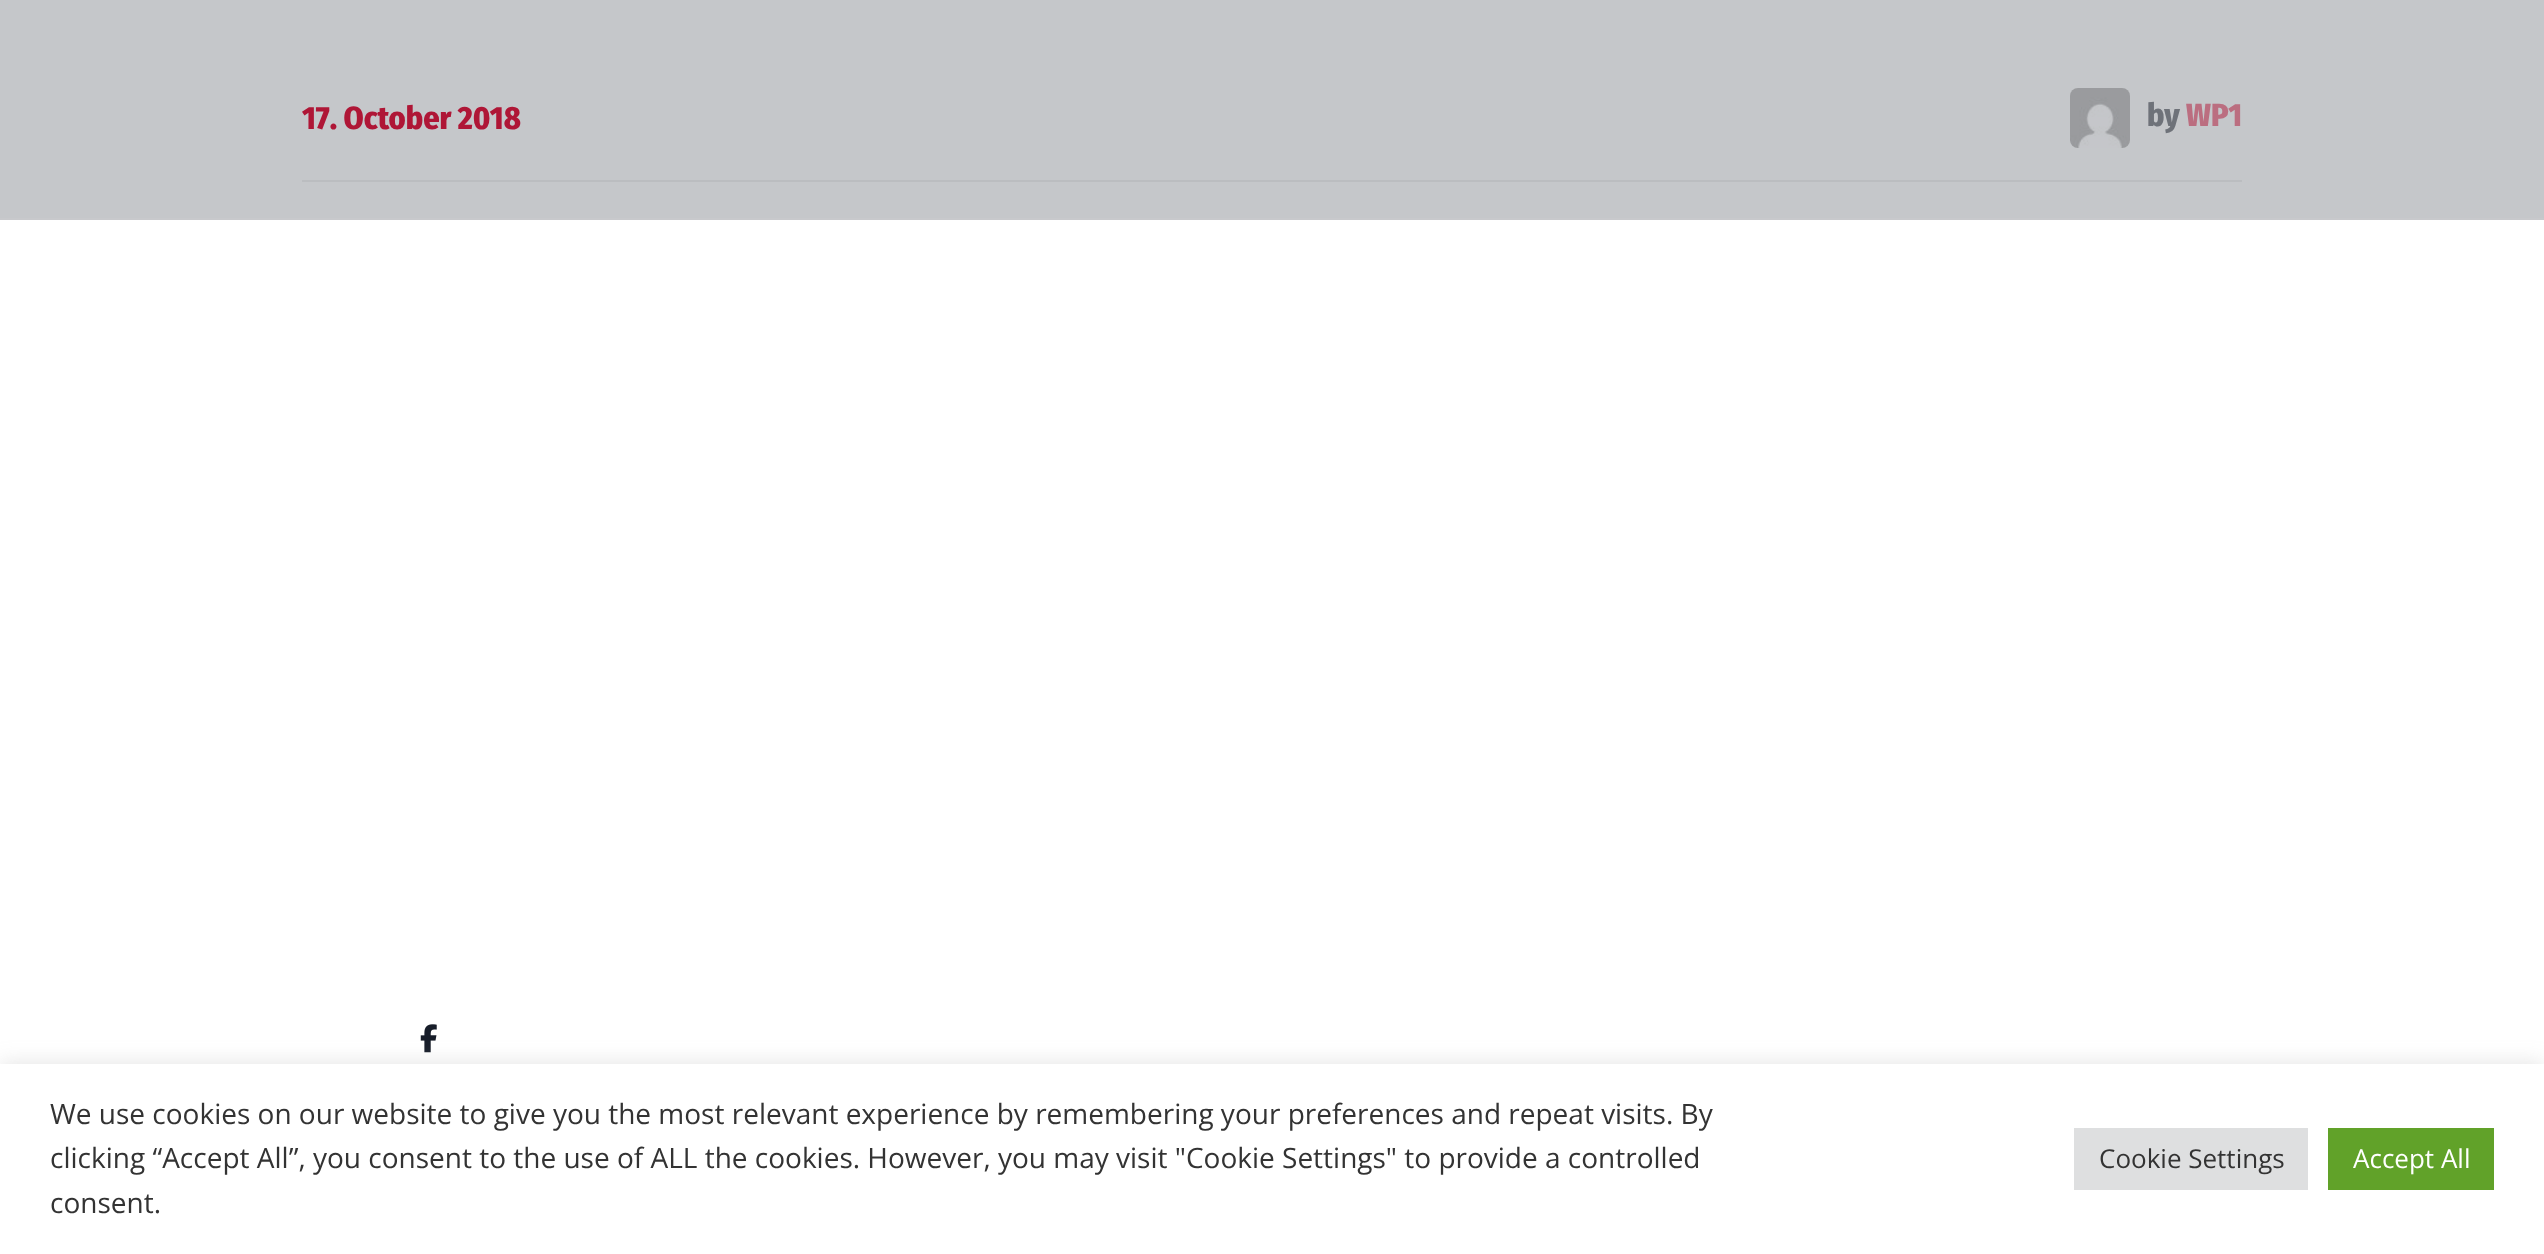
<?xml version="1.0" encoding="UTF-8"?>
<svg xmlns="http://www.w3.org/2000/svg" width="2544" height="1254">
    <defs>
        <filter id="blur1" x="-50%" y="-200%" width="200%" height="500%"><feGaussianBlur stdDeviation="10"/></filter>
    </defs>
    <rect width="100%" height="100%" fill="#FFFFFF"/>
    <rect x="0" y="0" width="2544" height="218" fill="#C5C7CA"/>
    <rect x="302" y="180" width="1940" height="2" fill="#BBBDC0"/>
    <text x="302" y="129" font-family="Fira Sans Condensed" font-size="32" font-weight="800" fill="#AF1636">17. October 2018</text>
    <image x="2070" y="88" width="60" height="60" href="img_01.png"/>
    <text x="2147" y="126" font-family="Fira Sans Condensed" font-size="32" font-weight="800" fill="#6E7279">by</text>
    <text x="2186" y="126" font-family="Fira Sans Condensed" font-size="32" font-weight="800" fill="#BB6E80">WP1</text>
    <image x="420" y="1024" width="17" height="29" href="img_02.png"/>
    <rect x="0" y="218" width="2544" height="2" fill="#C8C9CC"/>
    <rect x="0" y="1062" width="2544" height="190" fill="#ACABAB" fill-opacity="0.3" filter="url(#blur1)"/>
    <rect x="0" y="1064" width="2544" height="190" fill="#FFFFFF"/>
    <text font-family="Open Sans" font-size="28" fill="#333333">
        <tspan x="50" y="1124">We use cookies on our website to give you the most relevant experience by remembering your preferences and repeat visits. By</tspan>
        <tspan x="50" y="1168">clicking “Accept All”, you consent to the use of ALL the cookies. However, you may visit "Cookie Settings" to provide a controlled</tspan>
        <tspan x="50" y="1213">consent.</tspan>
    </text>
    <rect x="2074" y="1128" width="234" height="62" fill="#DEDFE0"/>
    <text x="2099" y="1168" font-family="Open Sans" font-size="26" fill="#333333">Cookie Settings</text>
    <rect x="2328" y="1128" width="166" height="62" fill="#61A229"/>
    <text x="2353" y="1168" font-family="Open Sans" font-size="26" fill="#FFFFFF">Accept All</text>
</svg>
